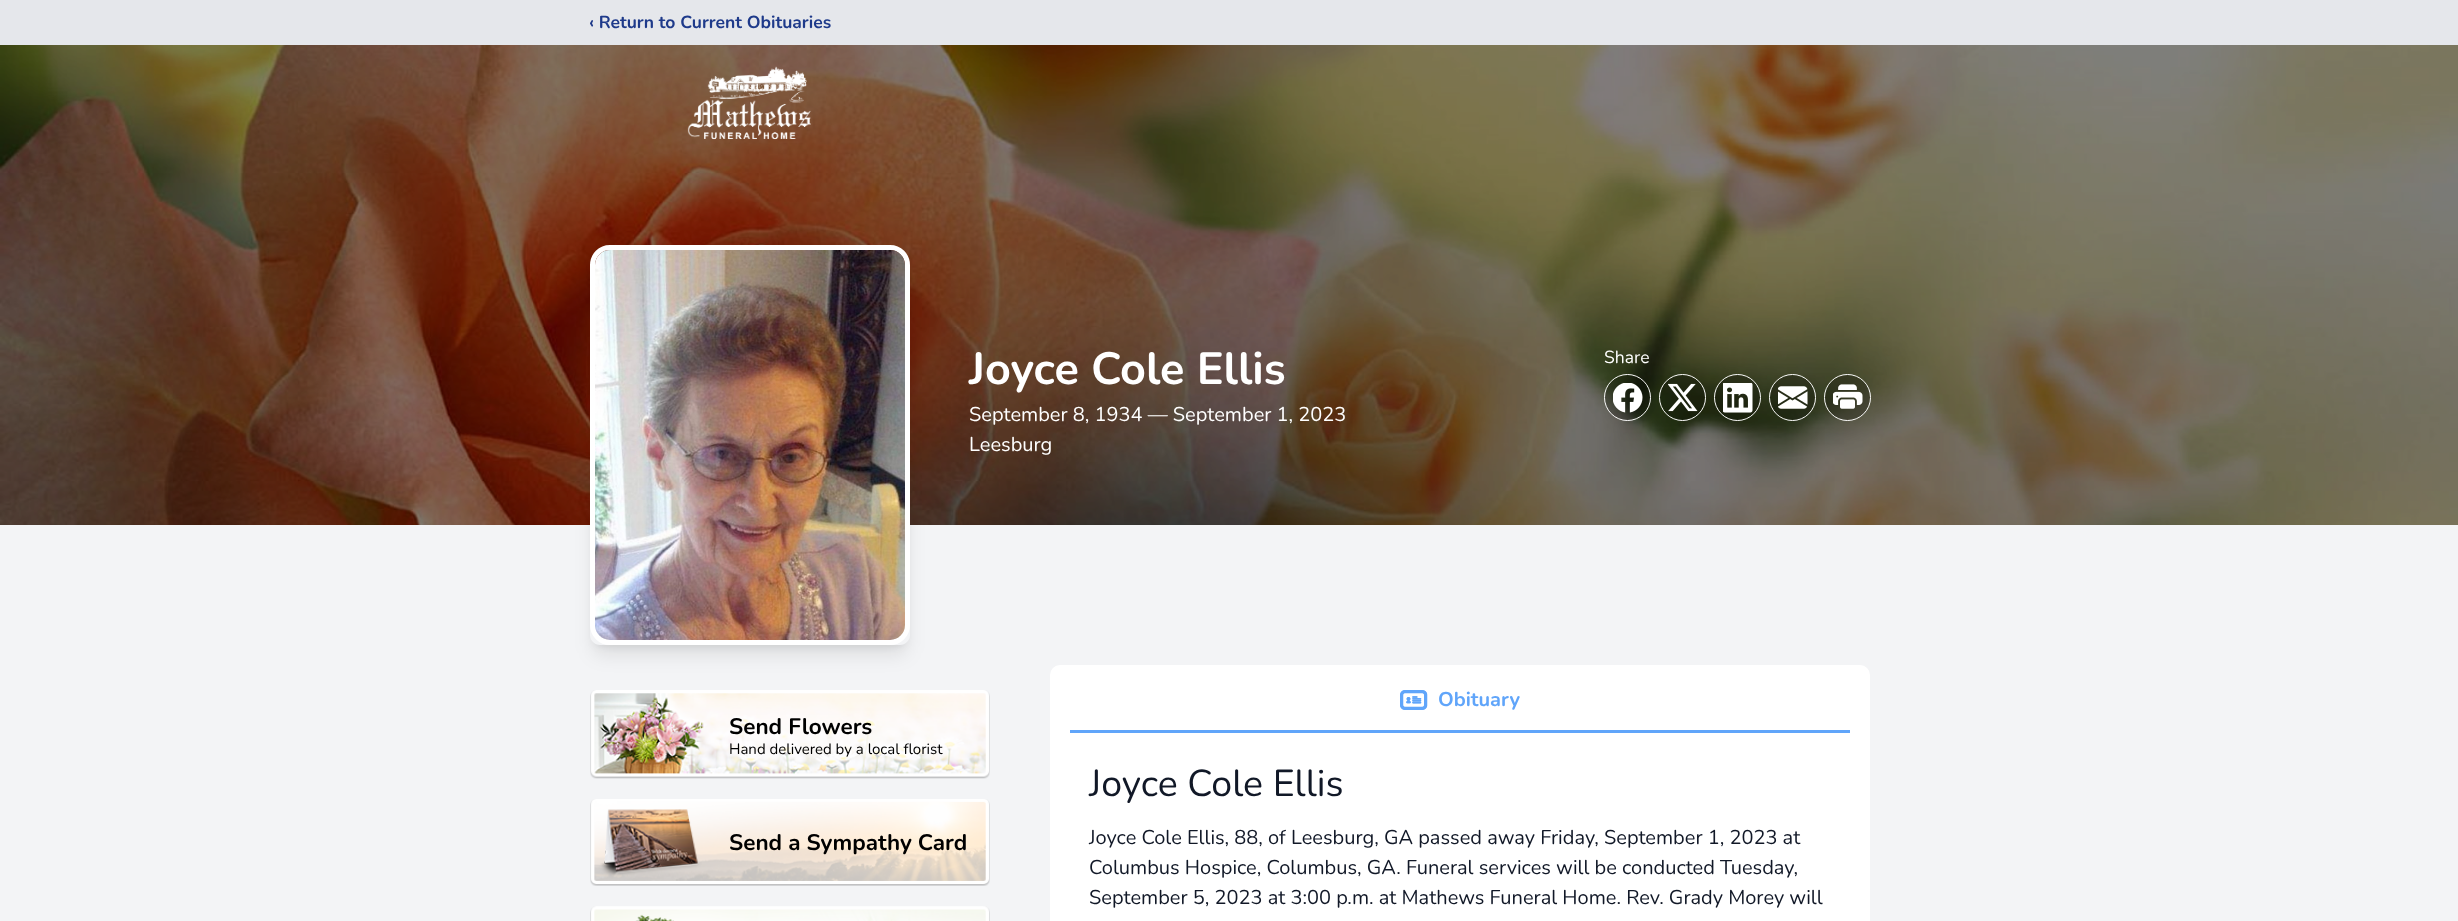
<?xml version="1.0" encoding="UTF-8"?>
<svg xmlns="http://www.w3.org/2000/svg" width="2458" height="921">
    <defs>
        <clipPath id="clip1"><path d="M 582 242 H 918 V 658 H 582 Z M 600 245 H 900 C 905.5 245 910 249.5 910 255 V 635 C 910 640.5 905.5 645 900 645 H 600 C 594.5 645 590 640.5 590 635 V 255 C 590 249.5 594.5 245 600 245 Z" clip-rule="evenodd"/></clipPath>
        <filter id="blur1" x="-50%" y="-200%" width="200%" height="500%"><feGaussianBlur stdDeviation="4"/></filter>
        <clipPath id="clip2"><path d="M 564 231 H 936 V 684 H 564 Z M 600 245 H 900 C 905.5 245 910 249.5 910 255 V 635 C 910 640.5 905.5 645 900 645 H 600 C 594.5 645 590 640.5 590 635 V 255 C 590 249.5 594.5 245 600 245 Z" clip-rule="evenodd"/></clipPath>
        <filter id="blur2" x="-50%" y="-200%" width="200%" height="500%"><feGaussianBlur stdDeviation="9.5"/></filter>
    </defs>
    <rect width="100%" height="100%" fill="#F3F4F6"/>
    <rect x="0" y="0" width="2458" height="45" fill="#E5E7EB"/>
    <text x="589" y="28" font-family="Nunito" font-size="17.5" font-weight="700" fill="#1E3A8A">‹ Return to Current Obituaries</text>
    <image x="0" y="45" width="2458" height="480" href="img_01.png"/>
    <image x="687" y="66" width="124" height="74" href="img_02.png"/>
    <g clip-path="url(#clip1)">
        <rect x="595" y="255" width="310" height="390" rx="5" fill="#000000" fill-opacity="0.1" filter="url(#blur1)"/>
    </g>
    <g clip-path="url(#clip2)">
        <rect x="594" y="261" width="312" height="393" rx="6" fill="#000000" fill-opacity="0.1" filter="url(#blur2)"/>
    </g>
    <rect x="592.5" y="247.5" width="315" height="395" rx="17.5" fill="none" stroke="#FFFFFF" stroke-width="5"/>
    <image x="595" y="250" width="310" height="390" href="img_03.png"/>
    <text x="969" y="384" font-family="Nunito" font-size="45" font-weight="700" fill="#FFFFFF">Joyce Cole Ellis</text>
    <text font-family="Nunito" font-size="20" fill="#FFFFFF">
        <tspan x="969" y="421">September 8, 1934 — September 1, 2023</tspan>
        <tspan x="969" y="451">Leesburg</tspan>
    </text>
    <text x="1604" y="363" font-family="Nunito" font-size="17.5" fill="#FFFFFF">Share</text>
    <circle cx="1627.5" cy="397.5" r="23" fill="none" stroke="#FFFFFF"/>
    <circle cx="1627.5" cy="397.5" r="22.5" fill="#000000" fill-opacity="0.2"/>
    <image x="1613" y="383" width="30" height="30" href="img_04.png"/>
    <circle cx="1682.5" cy="397.5" r="23" fill="none" stroke="#FFFFFF"/>
    <circle cx="1682.5" cy="397.5" r="22.5" fill="#000000" fill-opacity="0.2"/>
    <image x="1668" y="383" width="30" height="29" href="img_05.png"/>
    <circle cx="1737.5" cy="397.5" r="23" fill="none" stroke="#FFFFFF"/>
    <circle cx="1737.5" cy="397.5" r="22.5" fill="#000000" fill-opacity="0.2"/>
    <image x="1723" y="383" width="30" height="30" href="img_06.png"/>
    <circle cx="1792.5" cy="397.5" r="23" fill="none" stroke="#FFFFFF"/>
    <circle cx="1792.5" cy="397.5" r="22.5" fill="#000000" fill-opacity="0.2"/>
    <image x="1778" y="386" width="30" height="23" href="img_07.png"/>
    <circle cx="1847.5" cy="397.5" r="23" fill="none" stroke="#FFFFFF"/>
    <circle cx="1847.5" cy="397.5" r="22.5" fill="#000000" fill-opacity="0.2"/>
    <image x="1833" y="384" width="30" height="25" href="img_08.png"/>
    <image x="590" y="690" width="400" height="89" href="img_09.png"/>
    <text x="729" y="734" font-family="Nunito" font-size="22.5" font-weight="700" fill="#000000">Send Flowers</text>
    <text x="729" y="754" font-family="Nunito" font-size="15" fill="#000000">Hand delivered by a local florist</text>
    <image x="590" y="799" width="400" height="87" href="img_10.png"/>
    <text x="729" y="850" font-family="Nunito" font-size="22.5" font-weight="700" fill="#000000">Send a Sympathy Card</text>
    <image x="590" y="906" width="400" height="15" href="img_11.png"/>
    <rect x="1050" y="665" width="820" height="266" rx="10" fill="#FFFFFF"/>
    <rect x="1070" y="730" width="780" height="3" fill="#60A5FA"/>
    <image x="1400" y="690" width="28" height="20" href="img_12.png"/>
    <text x="1438" y="706" font-family="Nunito" font-size="20" font-weight="700" fill="#60A5FA">Obituary</text>
    <text x="1089" y="796" font-family="Nunito" font-size="37.5" fill="#111827">Joyce Cole Ellis</text>
    <text font-family="Nunito" font-size="20" fill="#111827">
        <tspan x="1089" y="844">Joyce Cole Ellis, 88, of Leesburg, GA passed away Friday, September 1, 2023 at</tspan>
        <tspan x="1089" y="874">Columbus Hospice, Columbus, GA. Funeral services will be conducted Tuesday,</tspan>
        <tspan x="1089" y="904">September 5, 2023 at 3:00 p.m. at Mathews Funeral Home. Rev. Grady Morey will</tspan>
    </text>
</svg>
